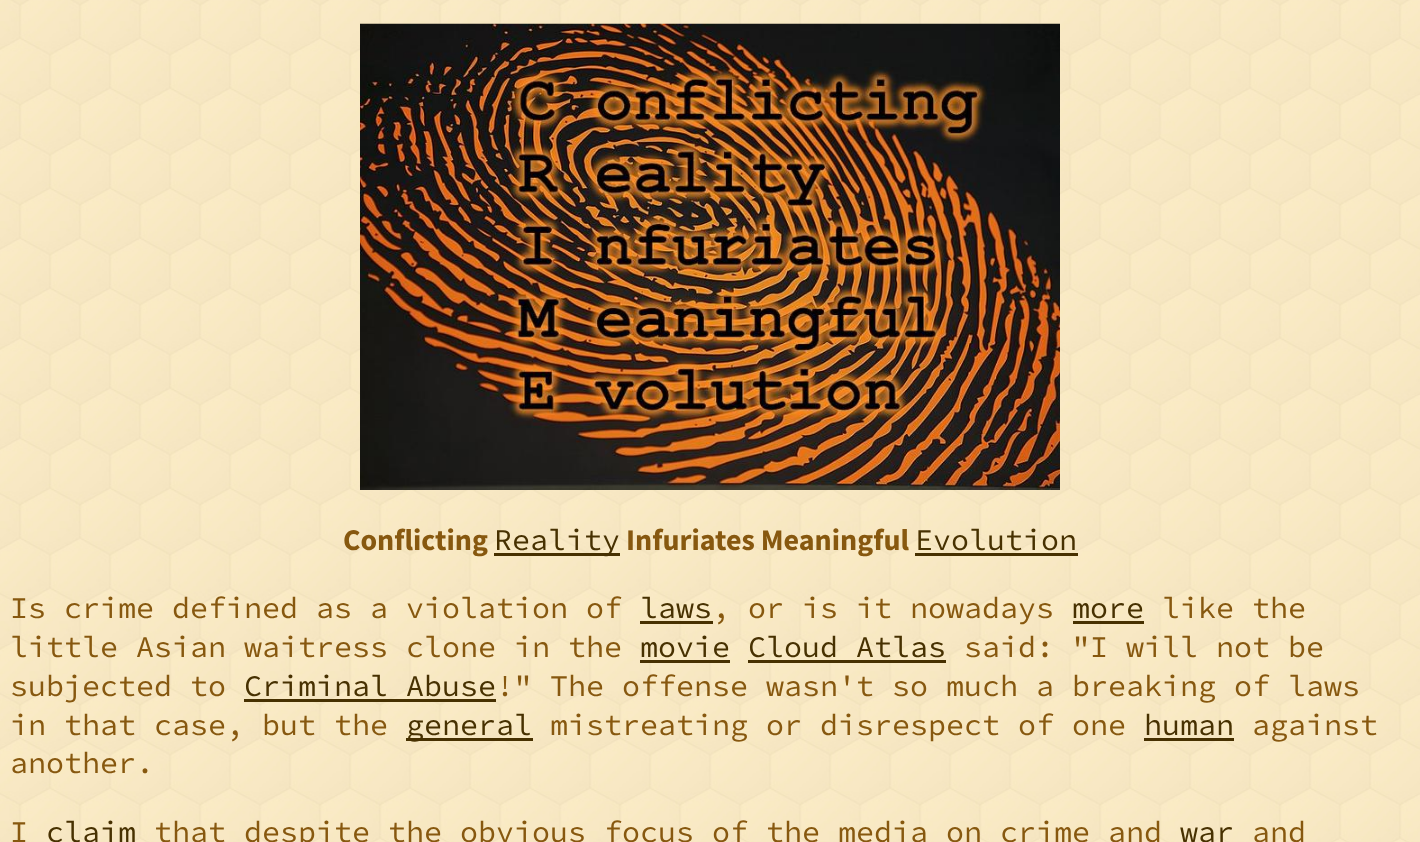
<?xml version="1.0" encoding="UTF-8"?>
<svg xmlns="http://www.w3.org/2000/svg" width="1420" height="842">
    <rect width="100%" height="100%" fill="#FFFFFF"/>
    <image x="0" y="0" width="1420" height="842" href="img_01.png"/>
    <image x="360" y="23" width="700" height="467" href="img_02.png"/>
    <text x="343" y="550" font-family="Source Sans Pro" font-size="30" font-weight="700" fill="#87580F">Conflicting</text>
    <rect x="494" y="553" width="126" height="3" fill="#473101"/>
    <text x="494" y="550" font-family="Source Code Pro" font-size="30" fill="#473101">Reality</text>
    <text x="626" y="550" font-family="Source Sans Pro" font-size="30" font-weight="700" fill="#87580F">Infuriates Meaningful</text>
    <rect x="915" y="553" width="163" height="3" fill="#473101"/>
    <text x="915" y="550" font-family="Source Code Pro" font-size="30" fill="#473101">Evolution</text>
    <text x="10" y="618" font-family="Source Code Pro" font-size="30" fill="#87580F">Is crime defined as a violation of</text>
    <text x="640" y="618" font-family="Source Code Pro" font-size="30" fill="#473101">laws</text>
    <rect x="640" y="621" width="73" height="3" fill="#473101"/>
    <text x="712" y="618" font-family="Source Code Pro" font-size="30" fill="#87580F">, or is it nowadays</text>
    <text x="1072" y="618" font-family="Source Code Pro" font-size="30" fill="#473101">more</text>
    <rect x="1073" y="621" width="71" height="3" fill="#473101"/>
    <text x="1162" y="618" font-family="Source Code Pro" font-size="30" fill="#87580F">like the</text>
    <text x="10" y="657" font-family="Source Code Pro" font-size="30" fill="#87580F">little Asian waitress clone in the</text>
    <text x="640" y="657" font-family="Source Code Pro" font-size="30" fill="#473101">movie Cloud Atlas</text>
    <rect x="640" y="660" width="90" height="3" fill="#473101"/>
    <text x="964" y="657" font-family="Source Code Pro" font-size="30" fill="#87580F">said: "I will not be</text>
    <rect x="748" y="660" width="198" height="3" fill="#473101"/>
    <text x="10" y="696" font-family="Source Code Pro" font-size="30" fill="#87580F">subjected to</text>
    <text x="244" y="696" font-family="Source Code Pro" font-size="30" fill="#473101">Criminal Abuse</text>
    <rect x="244" y="699" width="252" height="3" fill="#473101"/>
    <text x="496" y="696" font-family="Source Code Pro" font-size="30" fill="#87580F">!" The offense wasn't so much a breaking of laws</text>
    <text x="10" y="735" font-family="Source Code Pro" font-size="30" fill="#87580F">in that case, but the</text>
    <rect x="406" y="738" width="127" height="3" fill="#473101"/>
    <text x="406" y="735" font-family="Source Code Pro" font-size="30" fill="#473101">general</text>
    <text x="550" y="735" font-family="Source Code Pro" font-size="30" fill="#87580F">mistreating or disrespect of one</text>
    <text x="1144" y="735" font-family="Source Code Pro" font-size="30" fill="#473101">human</text>
    <rect x="1144" y="738" width="90" height="3" fill="#473101"/>
    <text x="1252" y="735" font-family="Source Code Pro" font-size="30" fill="#87580F">against</text>
    <text x="10" y="773" font-family="Source Code Pro" font-size="30" fill="#87580F">another.</text>
    <text x="10" y="842" font-family="Source Code Pro" font-size="30" fill="#87580F">I</text>
    <text x="46" y="842" font-family="Source Code Pro" font-size="30" fill="#473101">claim</text>
    <text x="154" y="842" font-family="Source Code Pro" font-size="30" fill="#87580F">that despite the obvious focus of the media on crime and</text>
    <text x="1180" y="842" font-family="Source Code Pro" font-size="30" fill="#473101">war</text>
    <text x="1252" y="842" font-family="Source Code Pro" font-size="30" fill="#87580F">and</text>
</svg>
